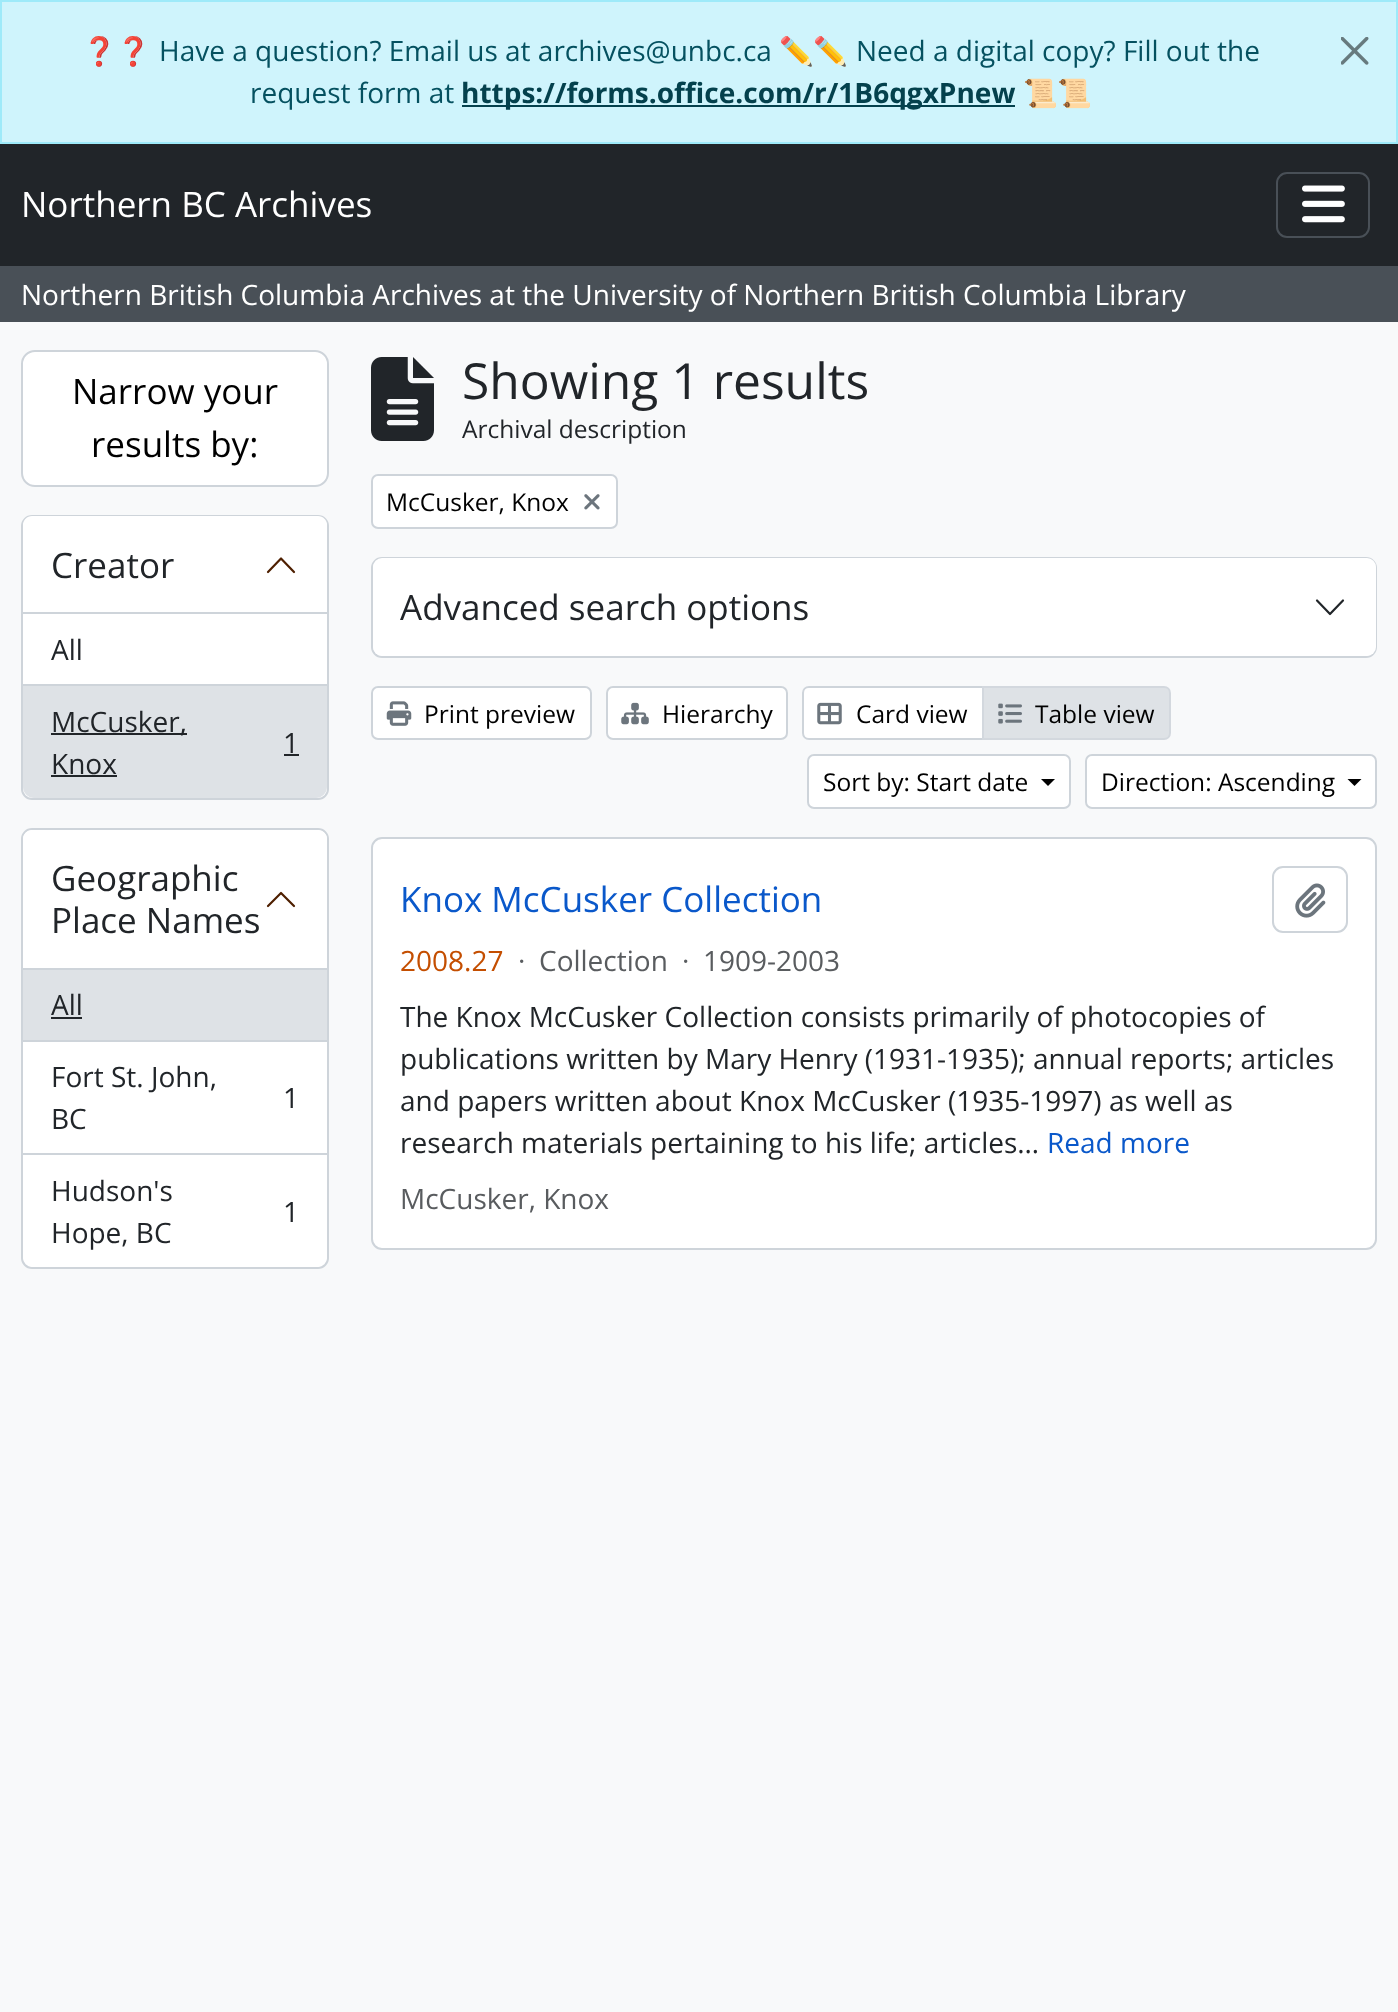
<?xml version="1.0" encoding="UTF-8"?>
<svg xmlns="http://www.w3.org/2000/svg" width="1398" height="2012">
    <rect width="100%" height="100%" fill="#F8F9FA"/>
    <rect x="1" y="1" width="1396" height="142" fill="#CFF4FC" stroke="#9EEAF9" stroke-width="2"/>
    <text x="82" y="61" font-family="Noto Color Emoji" font-size="28" fill="#055160">❓❓</text>
    <text x="159" y="61" font-family="Open Sans" font-size="28" fill="#055160">Have a question? Email us at archives@unbc.ca</text>
    <text x="779" y="61" font-family="Noto Color Emoji" font-size="28" fill="#055160">✏️✏️</text>
    <text x="856" y="61" font-family="Open Sans" font-size="28" fill="#055160">Need a digital copy? Fill out the</text>
    <text x="250" y="103" font-family="Open Sans" font-size="28" fill="#055160">request form at</text>
    <rect x="462" y="105" width="553" height="2" fill="#04414D"/>
    <text x="461" y="103" font-family="Open Sans" font-size="28" font-weight="700" fill="#04414D">https://forms.office.com/r/1B6qgxPnew</text>
    <text x="1023" y="103" font-family="Noto Color Emoji" font-size="28" fill="#055160">📜📜</text>
    <image x="1341" y="37" width="28" height="28" href="img_01.png"/>
    <rect x="0" y="144" width="1398" height="122" fill="#212529"/>
    <text x="21" y="217" font-family="Open Sans" font-size="35" fill="#FFFFFF">Northern BC Archives</text>
    <rect x="1277" y="173" width="92" height="64" rx="10" fill="none" stroke="#495057" stroke-width="2"/>
    <image x="1302" y="185" width="43" height="38" href="img_02.png"/>
    <rect x="0" y="266" width="1398" height="56" fill="#495057"/>
    <text x="21" y="305" font-family="Open Sans" font-size="28" fill="#FFFFFF">Northern British Columbia Archives at the University of Northern British Columbia Library</text>
    <rect x="22" y="351" width="306" height="135" rx="13" fill="#FFFFFF" stroke="#CED4DA" stroke-width="2"/>
    <text x="72" y="404" font-family="Open Sans" font-size="35" fill="#000000">Narrow your</text>
    <text x="91" y="457" font-family="Open Sans" font-size="35" fill="#000000">results by:</text>
    <rect x="22" y="516" width="306" height="283" rx="10" fill="#FFFFFF" stroke="#CED4DA" stroke-width="2"/>
    <path d="M 32 516 H 318 C 323 516 327 520 327 525 V 614 H 23 V 525 C 23 520 27 516 32 516 Z" fill="#FFFFFF"/>
    <rect x="23" y="612" width="304" height="2" fill="#CED4DA"/>
    <text x="51" y="578" font-family="Open Sans" font-size="35" fill="#212529">Creator</text>
    <path d="M 294 572 L 281 558.5 L 268 572" fill="none" stroke="#4E1F00" stroke-width="2.2" stroke-linecap="round" stroke-linejoin="round"/>
    <rect x="23" y="684" width="304" height="2" fill="#CED4DA"/>
    <text x="51" y="660" font-family="Open Sans" font-size="28" fill="#212529">All</text>
    <path d="M 23 686 H 327 V 787 C 327 793 322 798 316 798 H 34 C 28 798 23 793 23 787 Z" fill="#DEE2E6"/>
    <rect x="51" y="733" width="136" height="2" fill="#212529"/>
    <text x="51" y="732" font-family="Open Sans" font-size="28" fill="#212529">McCusker,</text>
    <text x="283" y="753" font-family="Open Sans" font-size="28" fill="#212529">1</text>
    <rect x="284" y="754" width="15" height="2" fill="#212529"/>
    <text x="51" y="774" font-family="Open Sans" font-size="28" fill="#212529">Knox</text>
    <rect x="51" y="775" width="66" height="2" fill="#212529"/>
    <rect x="22" y="829" width="306" height="439" rx="10" fill="#FFFFFF" stroke="#CED4DA" stroke-width="2"/>
    <path d="M 32 830 H 318 C 323 830 327 834 327 839 V 970 H 23 V 839 C 23 834 27 830 32 830 Z" fill="#FFFFFF"/>
    <rect x="23" y="968" width="304" height="2" fill="#CED4DA"/>
    <text x="51" y="891" font-family="Open Sans" font-size="35" fill="#212529">Geographic</text>
    <path d="M 294 906 L 281 893 L 268 906" fill="none" stroke="#4E1F00" stroke-width="2.2" stroke-linecap="round" stroke-linejoin="round"/>
    <text x="51" y="933" font-family="Open Sans" font-size="35" fill="#212529">Place Names</text>
    <rect x="23" y="970" width="304" height="70" fill="#DEE2E6"/>
    <rect x="23" y="1040" width="304" height="2" fill="#CED4DA"/>
    <text x="51" y="1015" font-family="Open Sans" font-size="28" fill="#212529">All</text>
    <rect x="51" y="1017" width="31" height="2" fill="#212529"/>
    <rect x="23" y="1153" width="304" height="2" fill="#CED4DA"/>
    <text x="51" y="1087" font-family="Open Sans" font-size="28" fill="#212529">Fort St. John,</text>
    <text x="283" y="1108" font-family="Open Sans" font-size="28" fill="#212529">1</text>
    <text x="51" y="1129" font-family="Open Sans" font-size="28" fill="#212529">BC</text>
    <path d="M 23 1155 H 327 V 1256 C 327 1262 322 1267 316 1267 H 34 C 28 1267 23 1262 23 1256 Z" fill="#FFFFFF"/>
    <text x="51" y="1201" font-family="Open Sans" font-size="28" fill="#212529">Hudson's</text>
    <text x="283" y="1222" font-family="Open Sans" font-size="28" fill="#212529">1</text>
    <text x="51" y="1243" font-family="Open Sans" font-size="28" fill="#212529">Hope, BC</text>
    <image x="371" y="357" width="63" height="84" href="img_03.png"/>
    <text x="462" y="399" font-family="Open Sans" font-size="49.75" fill="#212529">Showing 1 results</text>
    <text x="462" y="438" font-family="Open Sans" font-size="24.5" fill="#212529">Archival description</text>
    <rect x="372" y="475" width="245" height="53" rx="6" fill="#FFFFFF" stroke="#CED4DA" stroke-width="2"/>
    <text x="386" y="511" font-family="Open Sans" font-size="24.5" fill="#000000">McCusker, Knox</text>
    <image x="584" y="494" width="16" height="16" href="img_04.png"/>
    <rect x="372" y="558" width="1004" height="99" rx="10" fill="none" stroke="#CED4DA" stroke-width="2"/>
    <rect x="373" y="558" width="1003" height="98" rx="9" fill="#FFFFFF"/>
    <text x="400" y="620" font-family="Open Sans" font-size="35" fill="#212529">Advanced search options</text>
    <path d="M 1317 600.5 L 1330 614 L 1343 600.5" fill="none" stroke="#212529" stroke-width="2.2" stroke-linecap="round" stroke-linejoin="round"/>
    <rect x="372" y="687" width="219" height="52" rx="6" fill="#FFFFFF" stroke="#CED4DA" stroke-width="2"/>
    <image x="386" y="701" width="26" height="25" href="img_05.png"/>
    <text x="424" y="723" font-family="Open Sans" font-size="24.5" fill="#000000">Print preview</text>
    <rect x="607" y="687" width="180" height="52" rx="6" fill="#FFFFFF" stroke="#CED4DA" stroke-width="2"/>
    <image x="621" y="702" width="28" height="23" href="img_06.png"/>
    <text x="662" y="723" font-family="Open Sans" font-size="24.5" fill="#000000">Hierarchy</text>
    <path d="M 809 687 H 983 V 739 H 809 C 805.5 739 803 736.5 803 733 V 693 C 803 689.5 805.5 687 809 687 Z" fill="#FFFFFF" stroke="#CED4DA" stroke-width="2"/>
    <image x="817" y="702" width="25" height="23" href="img_07.png"/>
    <text x="856" y="723" font-family="Open Sans" font-size="24.5" fill="#000000">Card view</text>
    <path d="M 983 687 H 1164 C 1167.5 687 1170 689.5 1170 693 V 733 C 1170 736.5 1167.5 739 1164 739 H 983 Z" fill="#DEE2E6" stroke="#D3D8DE" stroke-width="2"/>
    <image x="998" y="703" width="24" height="21" href="img_08.png"/>
    <text x="1035" y="723" font-family="Open Sans" font-size="24.5" fill="#000000">Table view</text>
    <rect x="808" y="755" width="262" height="53" rx="6" fill="#FFFFFF" stroke="#CED4DA" stroke-width="2"/>
    <text x="823" y="791" font-family="Open Sans" font-size="24.5" fill="#000000">Sort by: Start date</text>
    <path d="M 1041 779 H 1055 L 1048 786 Z" fill="#000000"/>
    <rect x="1086" y="755" width="290" height="53" rx="6" fill="#FFFFFF" stroke="#CED4DA" stroke-width="2"/>
    <text x="1101" y="791" font-family="Open Sans" font-size="24.5" fill="#000000">Direction: Ascending</text>
    <path d="M 1347.5 779 H 1361.5 L 1354.5 786 Z" fill="#000000"/>
    <rect x="372" y="838" width="1004" height="411" rx="10" fill="#FFFFFF" stroke="#CED4DA" stroke-width="2"/>
    <text x="400" y="912" font-family="Open Sans" font-size="35" fill="#0A58CA">Knox McCusker Collection</text>
    <rect x="1273" y="867" width="74" height="65" rx="10" fill="none" stroke="#CED4DA" stroke-width="2"/>
    <image x="1295" y="883" width="31" height="35" href="img_09.png"/>
    <text x="400" y="971" font-family="Open Sans" font-size="28" fill="#C44E00">2008.27</text>
    <text x="518" y="971" font-family="Open Sans" font-size="28" fill="#595C5F">·</text>
    <text x="539" y="971" font-family="Open Sans" font-size="28" fill="#595C5F">Collection</text>
    <text x="682" y="971" font-family="Open Sans" font-size="28" fill="#595C5F">·</text>
    <text x="703" y="971" font-family="Open Sans" font-size="28" fill="#595C5F">1909-2003</text>
    <text font-family="Open Sans" font-size="28" fill="#212529">
        <tspan x="400" y="1027">The Knox McCusker Collection consists primarily of photocopies of</tspan>
        <tspan x="400" y="1069">publications written by Mary Henry (1931-1935); annual reports; articles</tspan>
        <tspan x="400" y="1111">and papers written about Knox McCusker (1935-1997) as well as</tspan>
        <tspan x="400" y="1153">research materials pertaining to his life; articles…</tspan>
    </text>
    <text x="1047" y="1153" font-family="Open Sans" font-size="28" fill="#0A58CA">Read more</text>
    <text x="400" y="1209" font-family="Open Sans" font-size="28" fill="#595C5F">McCusker, Knox</text>
</svg>
